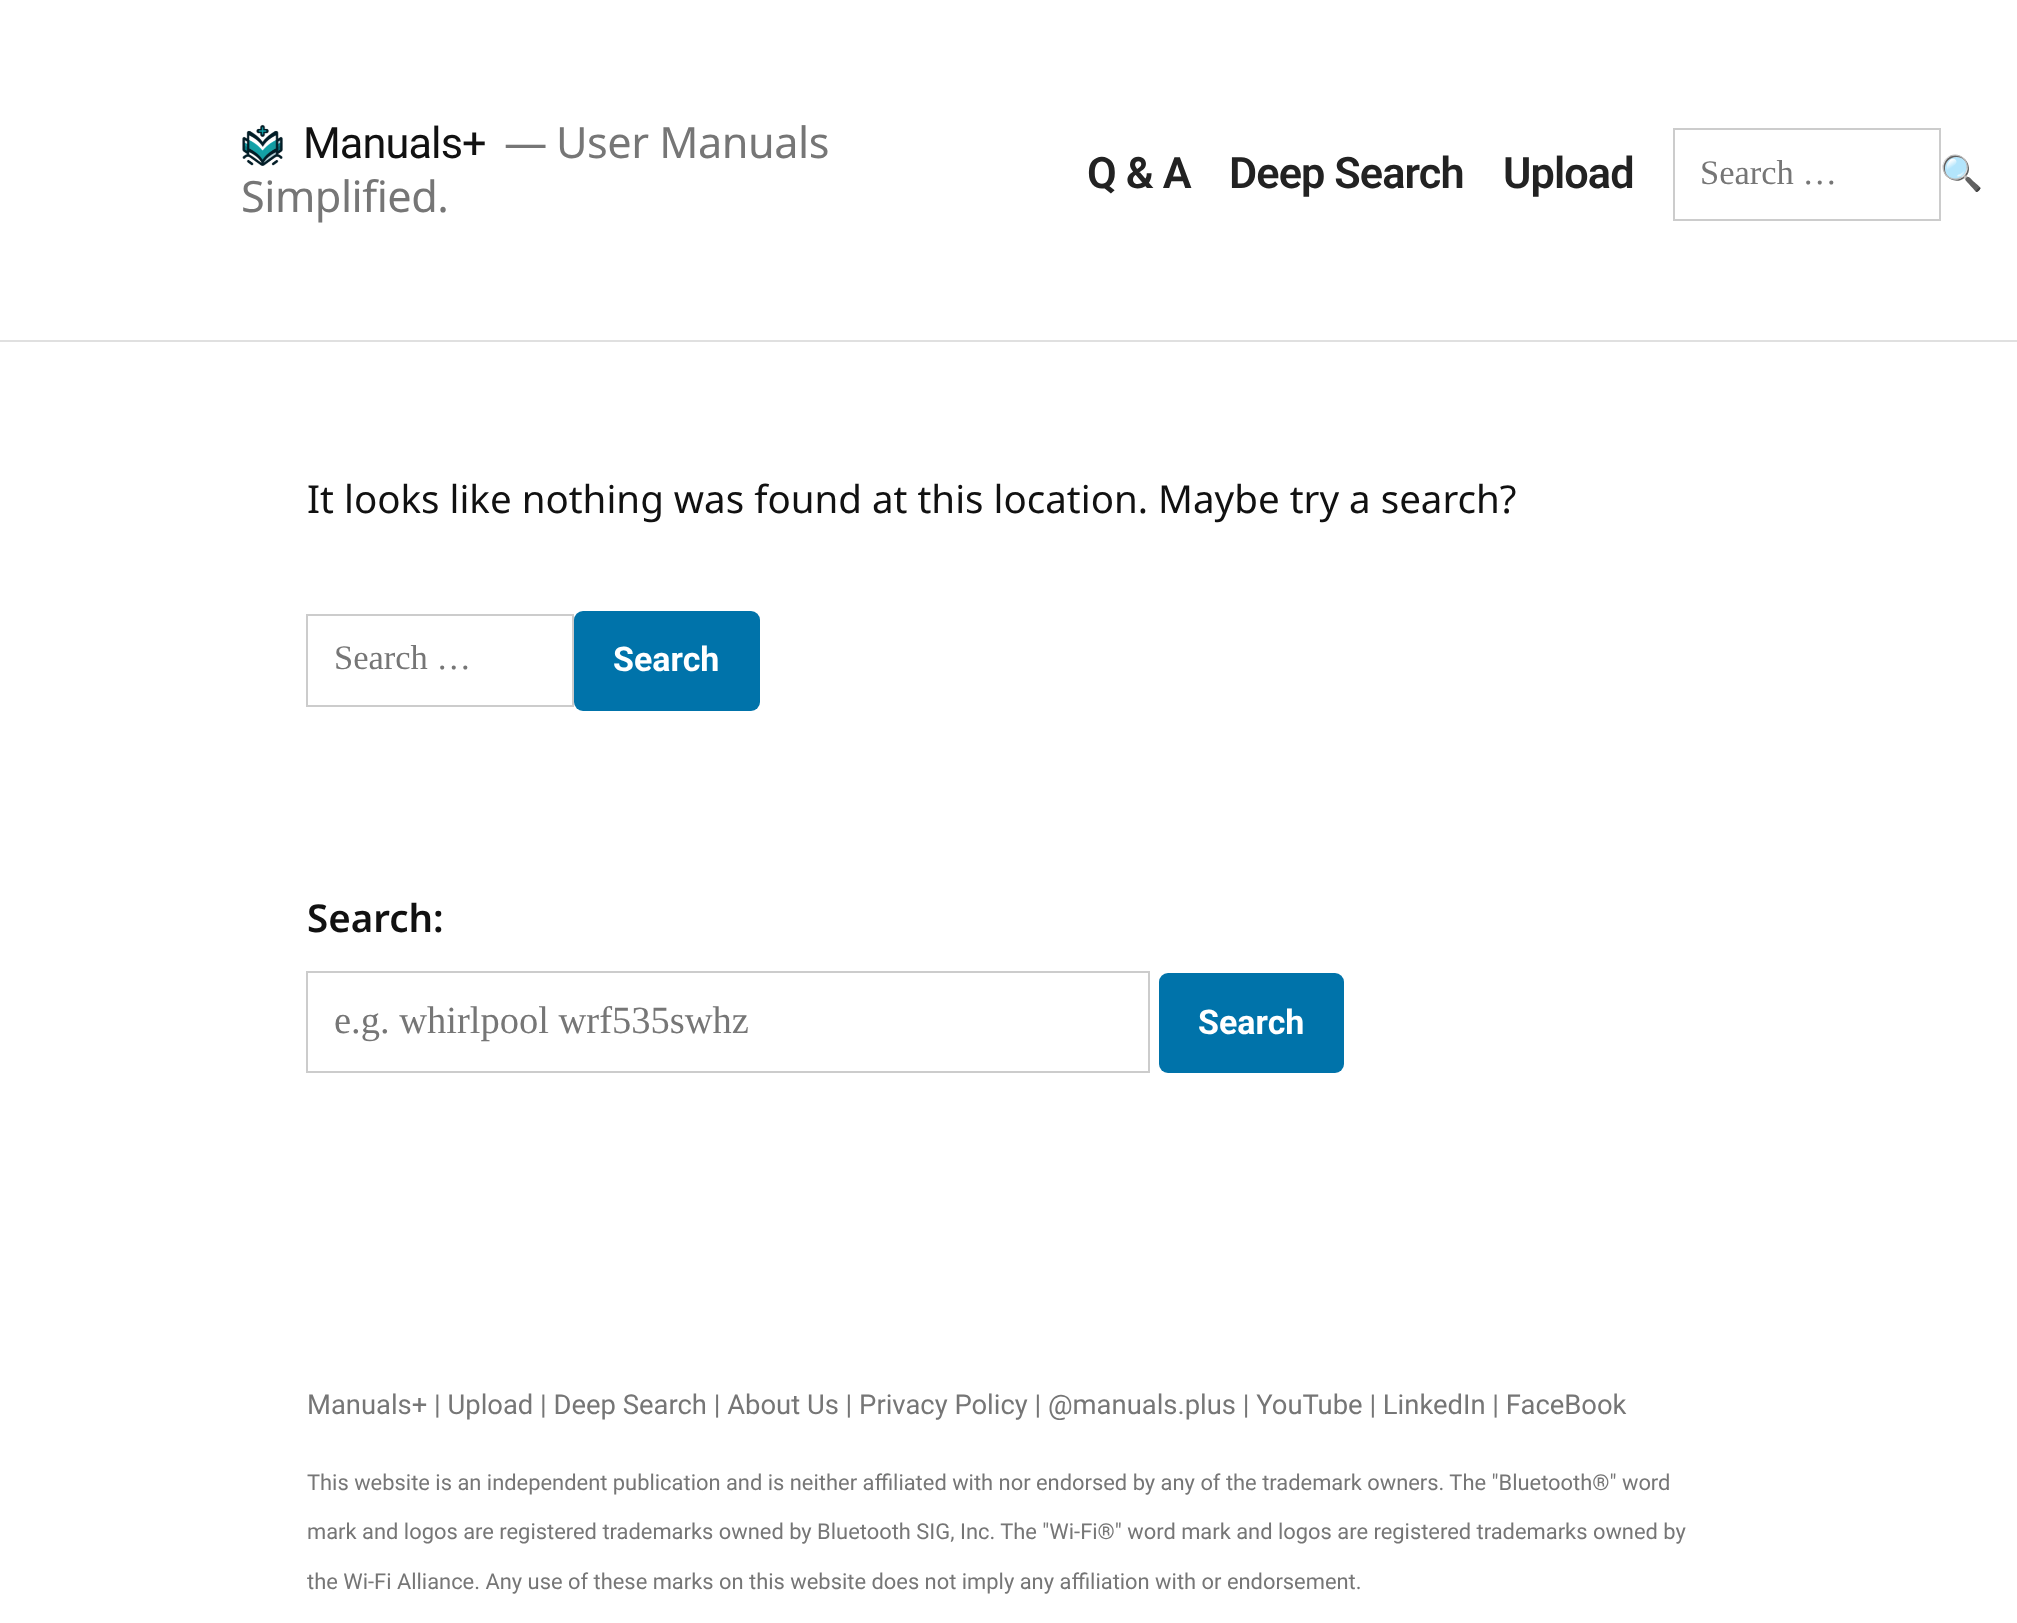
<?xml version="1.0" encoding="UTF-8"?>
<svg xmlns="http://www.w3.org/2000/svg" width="2017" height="1623">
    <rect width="100%" height="100%" fill="#FFFFFF"/>
    <rect x="0" y="340" width="2017" height="2" fill="#E0E0E0"/>
    <image x="242" y="124" width="41" height="42" href="img_01.png"/>
    <text x="303" y="158" font-family="Roboto" font-size="43.25" letter-spacing="-0.9" fill="#111111">Manuals+</text>
    <text x="504" y="158" font-family="Noto Sans" font-size="43.25" letter-spacing="-0.5" fill="#767676">—</text>
    <text x="556" y="158" font-family="Noto Sans" font-size="43.25" letter-spacing="-0.5" fill="#767676">User Manuals</text>
    <text x="241" y="212" font-family="Noto Sans" font-size="43.25" letter-spacing="-0.5" fill="#767676">Simplified.</text>
    <text x="1087" y="188" font-family="Roboto" font-size="43.25" font-weight="600" letter-spacing="-0.9" fill="#222222">Q &amp; A</text>
    <text x="1229" y="188" font-family="Roboto" font-size="43.25" font-weight="600" letter-spacing="-0.9" fill="#222222">Deep Search</text>
    <text x="1503" y="188" font-family="Roboto" font-size="43.25" font-weight="600" letter-spacing="-0.9" fill="#222222">Upload</text>
    <text x="1940" y="185" font-family="Noto Color Emoji" font-size="34.5" font-weight="700" fill="#111111">🔍</text>
    <rect x="1674" y="129" width="266" height="91" fill="none" stroke="#CCCCCC" stroke-width="2"/>
    <text x="1700" y="184" font-family="Liberation Serif" font-size="34.5" fill="#767676">Search …</text>
    <text x="307" y="513" font-family="Noto Sans" font-size="38.5" fill="#111111">It looks like nothing was found at this location. Maybe try a search?</text>
    <rect x="307" y="615" width="266" height="91" fill="none" stroke="#CCCCCC" stroke-width="2"/>
    <text x="334" y="669" font-family="Liberation Serif" font-size="34.5" fill="#767676">Search …</text>
    <rect x="574" y="611" width="186" height="100" rx="9" fill="#0073AA"/>
    <text x="613" y="671" font-family="Roboto" font-size="34" font-weight="700" fill="#FFFFFF">Search</text>
    <text x="307" y="932" font-family="Noto Sans" font-size="38.5" font-weight="600" fill="#111111">Search:</text>
    <rect x="307" y="972" width="842" height="100" fill="none" stroke="#CCCCCC" stroke-width="2"/>
    <text x="334" y="1033" font-family="Liberation Serif" font-size="38.5" fill="#767676">e.g. whirlpool wrf535swhz</text>
    <rect x="1159" y="973" width="185" height="100" rx="9" fill="#0073AA"/>
    <text x="1198" y="1034" font-family="Roboto" font-size="34" font-weight="700" fill="#FFFFFF">Search</text>
    <text x="307" y="1414" font-family="Roboto" font-size="27.4" fill="#767676">Manuals+ | Upload | Deep Search | About Us | Privacy Policy | @manuals.plus | YouTube | LinkedIn | FaceBook</text>
    <text x="307" y="1490" font-family="Roboto" font-size="21.9" fill="#767676">This website is an independent publication and is neither affiliated with nor endorsed by any of the trademark owners. The "Bluetooth®" word</text>
    <text x="307" y="1539" font-family="Roboto" font-size="21.9" fill="#767676">mark and logos are registered trademarks owned by Bluetooth SIG, Inc. The "Wi-Fi®" word mark and logos are registered trademarks owned by</text>
    <text x="307" y="1589" font-family="Roboto" font-size="21.9" fill="#767676">the Wi-Fi Alliance. Any use of these marks on this website does not imply any affiliation with or endorsement.</text>
</svg>
